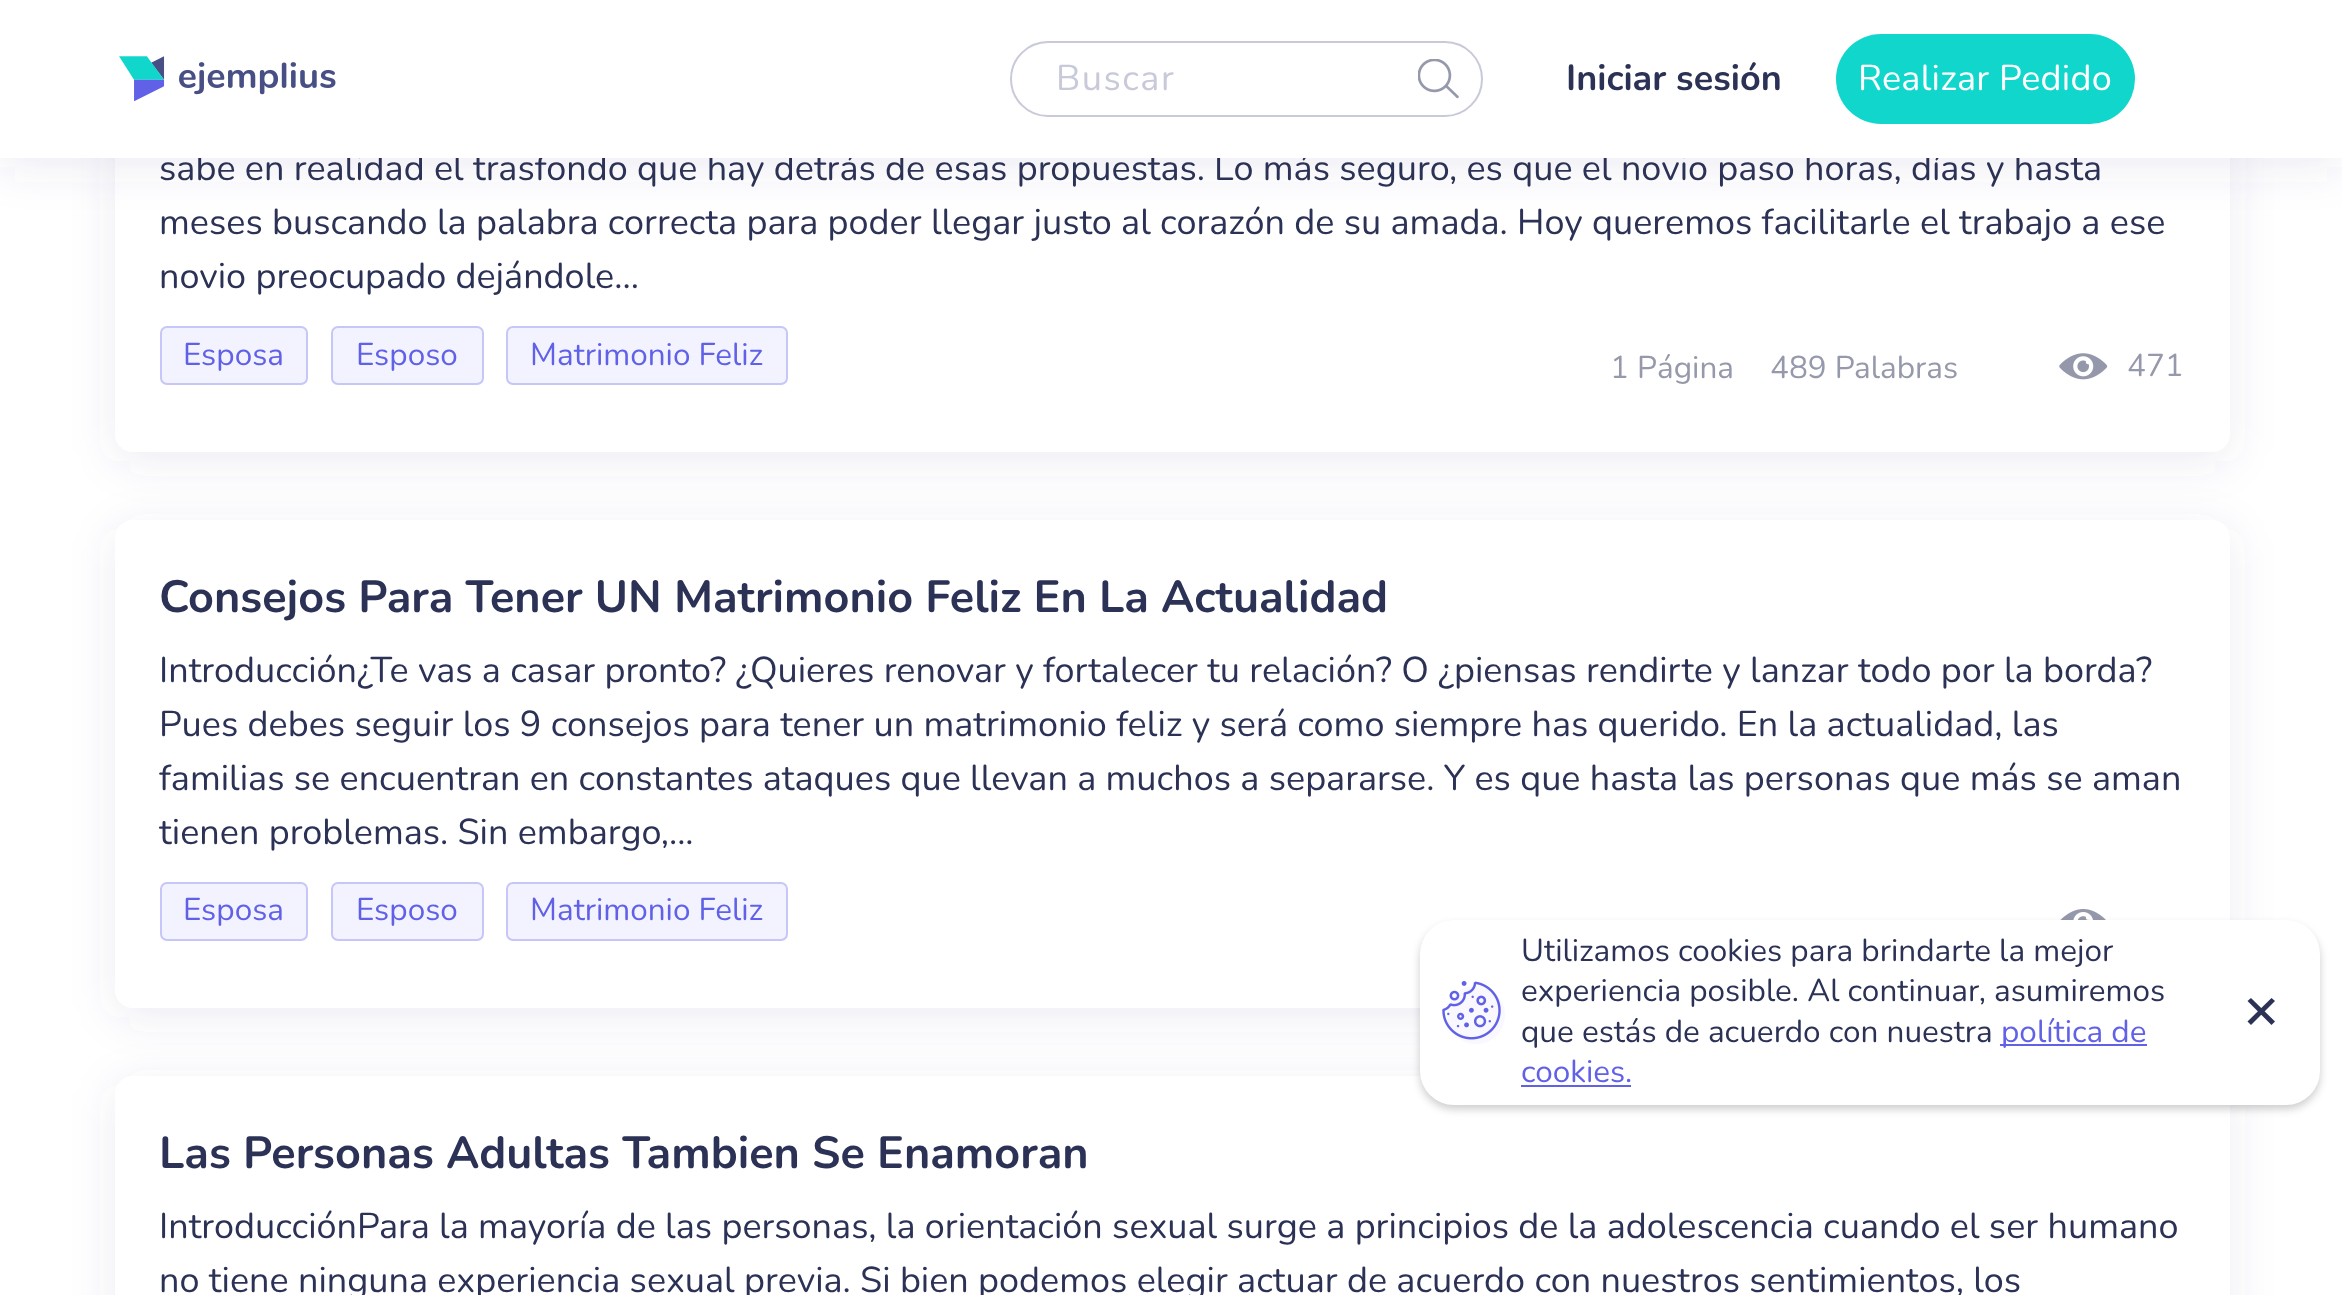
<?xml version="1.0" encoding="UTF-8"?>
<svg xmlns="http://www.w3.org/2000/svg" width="2342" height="1295">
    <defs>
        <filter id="blur1" x="-50%" y="-200%" width="200%" height="500%"><feGaussianBlur stdDeviation="22.5"/></filter>
        <filter id="blur2" x="-50%" y="-200%" width="200%" height="500%"><feGaussianBlur stdDeviation="4.5"/></filter>
    </defs>
    <rect width="100%" height="100%" fill="#FFFFFF"/>
    <rect x="115" y="-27" width="2115" height="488" rx="18" fill="#474F85" fill-opacity="0.1" filter="url(#blur1)"/>
    <rect x="115" y="-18" width="2115" height="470" rx="18" fill="#FFFFFF"/>
    <rect x="0" y="9" width="2342" height="158" fill="#474F85" fill-opacity="0.1" filter="url(#blur1)"/>
    <text x="159" y="180" font-family="Nunito" font-size="36" fill="#2C3256">sabe en realidad el trasfondo que hay detrás de esas propuestas. Lo más seguro, es que el novio paso horas, días y hasta</text>
    <rect x="0" y="0" width="2342" height="158" fill="#FFFFFF"/>
    <image x="119" y="56" width="217" height="45" href="img_01.png"/>
    <rect x="1011" y="42" width="471" height="74" rx="37" fill="none" stroke="#C8CADA" stroke-width="2"/>
    <text x="1056" y="90" font-family="Nunito" font-size="36" letter-spacing="1.5" fill="#C8CADA">Buscar</text>
    <image x="1418" y="59" width="41" height="40" href="img_02.png"/>
    <text x="1566" y="90" font-family="Nunito" font-size="36" font-weight="700" fill="#2C3256">Iniciar sesión</text>
    <rect x="1836" y="34" width="299" height="90" rx="45" fill="#11D6CC"/>
    <text x="1858" y="90" font-family="Nunito" font-size="36" letter-spacing="0.25" fill="#FFFFFF">Realizar Pedido</text>
    <text font-family="Nunito" font-size="36" fill="#2C3256">
        <tspan x="159" y="234">meses buscando la palabra correcta para poder llegar justo al corazón de su amada. Hoy queremos facilitarle el trabajo a ese</tspan>
        <tspan x="159" y="288">novio preocupado dejándole...</tspan>
    </text>
    <rect x="160" y="326" width="148" height="59" rx="7" fill="#F3F3FF"/>
    <rect x="161" y="327" width="146" height="57" rx="6" fill="none" stroke="#6161E8" stroke-opacity="0.3" stroke-width="2"/>
    <text x="183" y="365" font-family="Nunito" font-size="31.5" fill="#6161E8">Esposa</text>
    <rect x="331" y="326" width="153" height="59" rx="7" fill="#F3F3FF"/>
    <rect x="332" y="327" width="151" height="57" rx="6" fill="none" stroke="#6161E8" stroke-opacity="0.3" stroke-width="2"/>
    <text x="356" y="365" font-family="Nunito" font-size="31.5" fill="#6161E8">Esposo</text>
    <rect x="506" y="326" width="282" height="59" rx="7" fill="#F3F3FF"/>
    <rect x="507" y="327" width="280" height="57" rx="6" fill="none" stroke="#6161E8" stroke-opacity="0.3" stroke-width="2"/>
    <text x="530" y="365" font-family="Nunito" font-size="31.5" fill="#6161E8">Matrimonio Feliz</text>
    <text x="1610" y="378" font-family="Nunito" font-size="31.5" fill="#9699AB">1 Página</text>
    <text x="1770" y="378" font-family="Nunito" font-size="31.5" fill="#9699AB">489 Palabras</text>
    <image x="2059" y="353" width="49" height="27" href="img_03.png"/>
    <text x="2127" y="376" font-family="Nunito" font-size="31.5" fill="#9699AB">471</text>
    <rect x="115" y="529" width="2115" height="488" rx="18" fill="#474F85" fill-opacity="0.1" filter="url(#blur1)"/>
    <rect x="115" y="520" width="2115" height="488" rx="18" fill="#FFFFFF"/>
    <text x="159" y="612" font-family="Nunito" font-size="45" font-weight="700" fill="#2C3256">Consejos Para Tener UN Matrimonio Feliz En La Actualidad</text>
    <text font-family="Nunito" font-size="36" fill="#2C3256">
        <tspan x="159" y="682">Introducción¿Te vas a casar pronto? ¿Quieres renovar y fortalecer tu relación? O ¿piensas rendirte y lanzar todo por la borda?</tspan>
        <tspan x="159" y="736">Pues debes seguir los 9 consejos para tener un matrimonio feliz y será como siempre has querido. En la actualidad, las</tspan>
        <tspan x="159" y="790">familias se encuentran en constantes ataques que llevan a muchos a separarse. Y es que hasta las personas que más se aman</tspan>
        <tspan x="159" y="844">tienen problemas. Sin embargo,...</tspan>
    </text>
    <rect x="160" y="882" width="148" height="59" rx="7" fill="#F3F3FF"/>
    <rect x="161" y="883" width="146" height="57" rx="6" fill="none" stroke="#6161E8" stroke-opacity="0.3" stroke-width="2"/>
    <text x="183" y="920" font-family="Nunito" font-size="31.5" fill="#6161E8">Esposa</text>
    <rect x="331" y="882" width="153" height="59" rx="7" fill="#F3F3FF"/>
    <rect x="332" y="883" width="151" height="57" rx="6" fill="none" stroke="#6161E8" stroke-opacity="0.3" stroke-width="2"/>
    <text x="356" y="920" font-family="Nunito" font-size="31.5" fill="#6161E8">Esposo</text>
    <rect x="506" y="882" width="282" height="59" rx="7" fill="#F3F3FF"/>
    <rect x="507" y="883" width="280" height="57" rx="6" fill="none" stroke="#6161E8" stroke-opacity="0.3" stroke-width="2"/>
    <text x="530" y="920" font-family="Nunito" font-size="31.5" fill="#6161E8">Matrimonio Feliz</text>
    <image x="2060" y="909" width="46" height="11" href="img_04.png"/>
    <rect x="115" y="1085" width="2115" height="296" rx="18" fill="#474F85" fill-opacity="0.1" filter="url(#blur1)"/>
    <rect x="115" y="1076" width="2115" height="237" rx="18" fill="#FFFFFF"/>
    <text x="159" y="1168" font-family="Nunito" font-size="45" font-weight="700" fill="#2C3256">Las Personas Adultas Tambien Se Enamoran</text>
    <text font-family="Nunito" font-size="36" fill="#2C3256">
        <tspan x="159" y="1238">IntroducciónPara la mayoría de las personas, la orientación sexual surge a principios de la adolescencia cuando el ser humano</tspan>
        <tspan x="159" y="1292">no tiene ninguna experiencia sexual previa. Si bien podemos elegir actuar de acuerdo con nuestros sentimientos, los</tspan>
    </text>
    <rect x="1420" y="925" width="900" height="184" rx="34" fill="#000000" fill-opacity="0.2" filter="url(#blur2)"/>
    <rect x="1420" y="920" width="900" height="185" rx="34" fill="#FFFFFF"/>
    <text x="1521" y="961" font-family="Nunito" font-size="31.5" fill="#2C3256">Utilizamos cookies para brindarte la mejor</text>
    <image x="1442" y="981" width="63" height="63" href="img_05.png"/>
    <text font-family="Nunito" font-size="31.5" fill="#2C3256">
        <tspan x="1521" y="1001">experiencia posible. Al continuar, asumiremos</tspan>
        <tspan x="1521" y="1042">que estás de acuerdo con nuestra</tspan>
    </text>
    <rect x="2000" y="1044" width="147" height="2" fill="#6161E8"/>
    <text x="2001" y="1042" font-family="Nunito" font-size="31.5" fill="#6161E8">política de</text>
    <text x="1521" y="1082" font-family="Nunito" font-size="31.5" fill="#6161E8">cookies.</text>
    <rect x="1521" y="1085" width="110" height="2" fill="#6161E8"/>
    <path d="M 2247.5 1001 L 2251 998 L 2275 1021.5 L 2271.5 1025 Z" fill="#2C3256"/>
    <path d="M 2271.5 998 L 2275 1001 L 2251 1025 L 2247.5 1021.5 Z" fill="#2C3256"/>
</svg>
